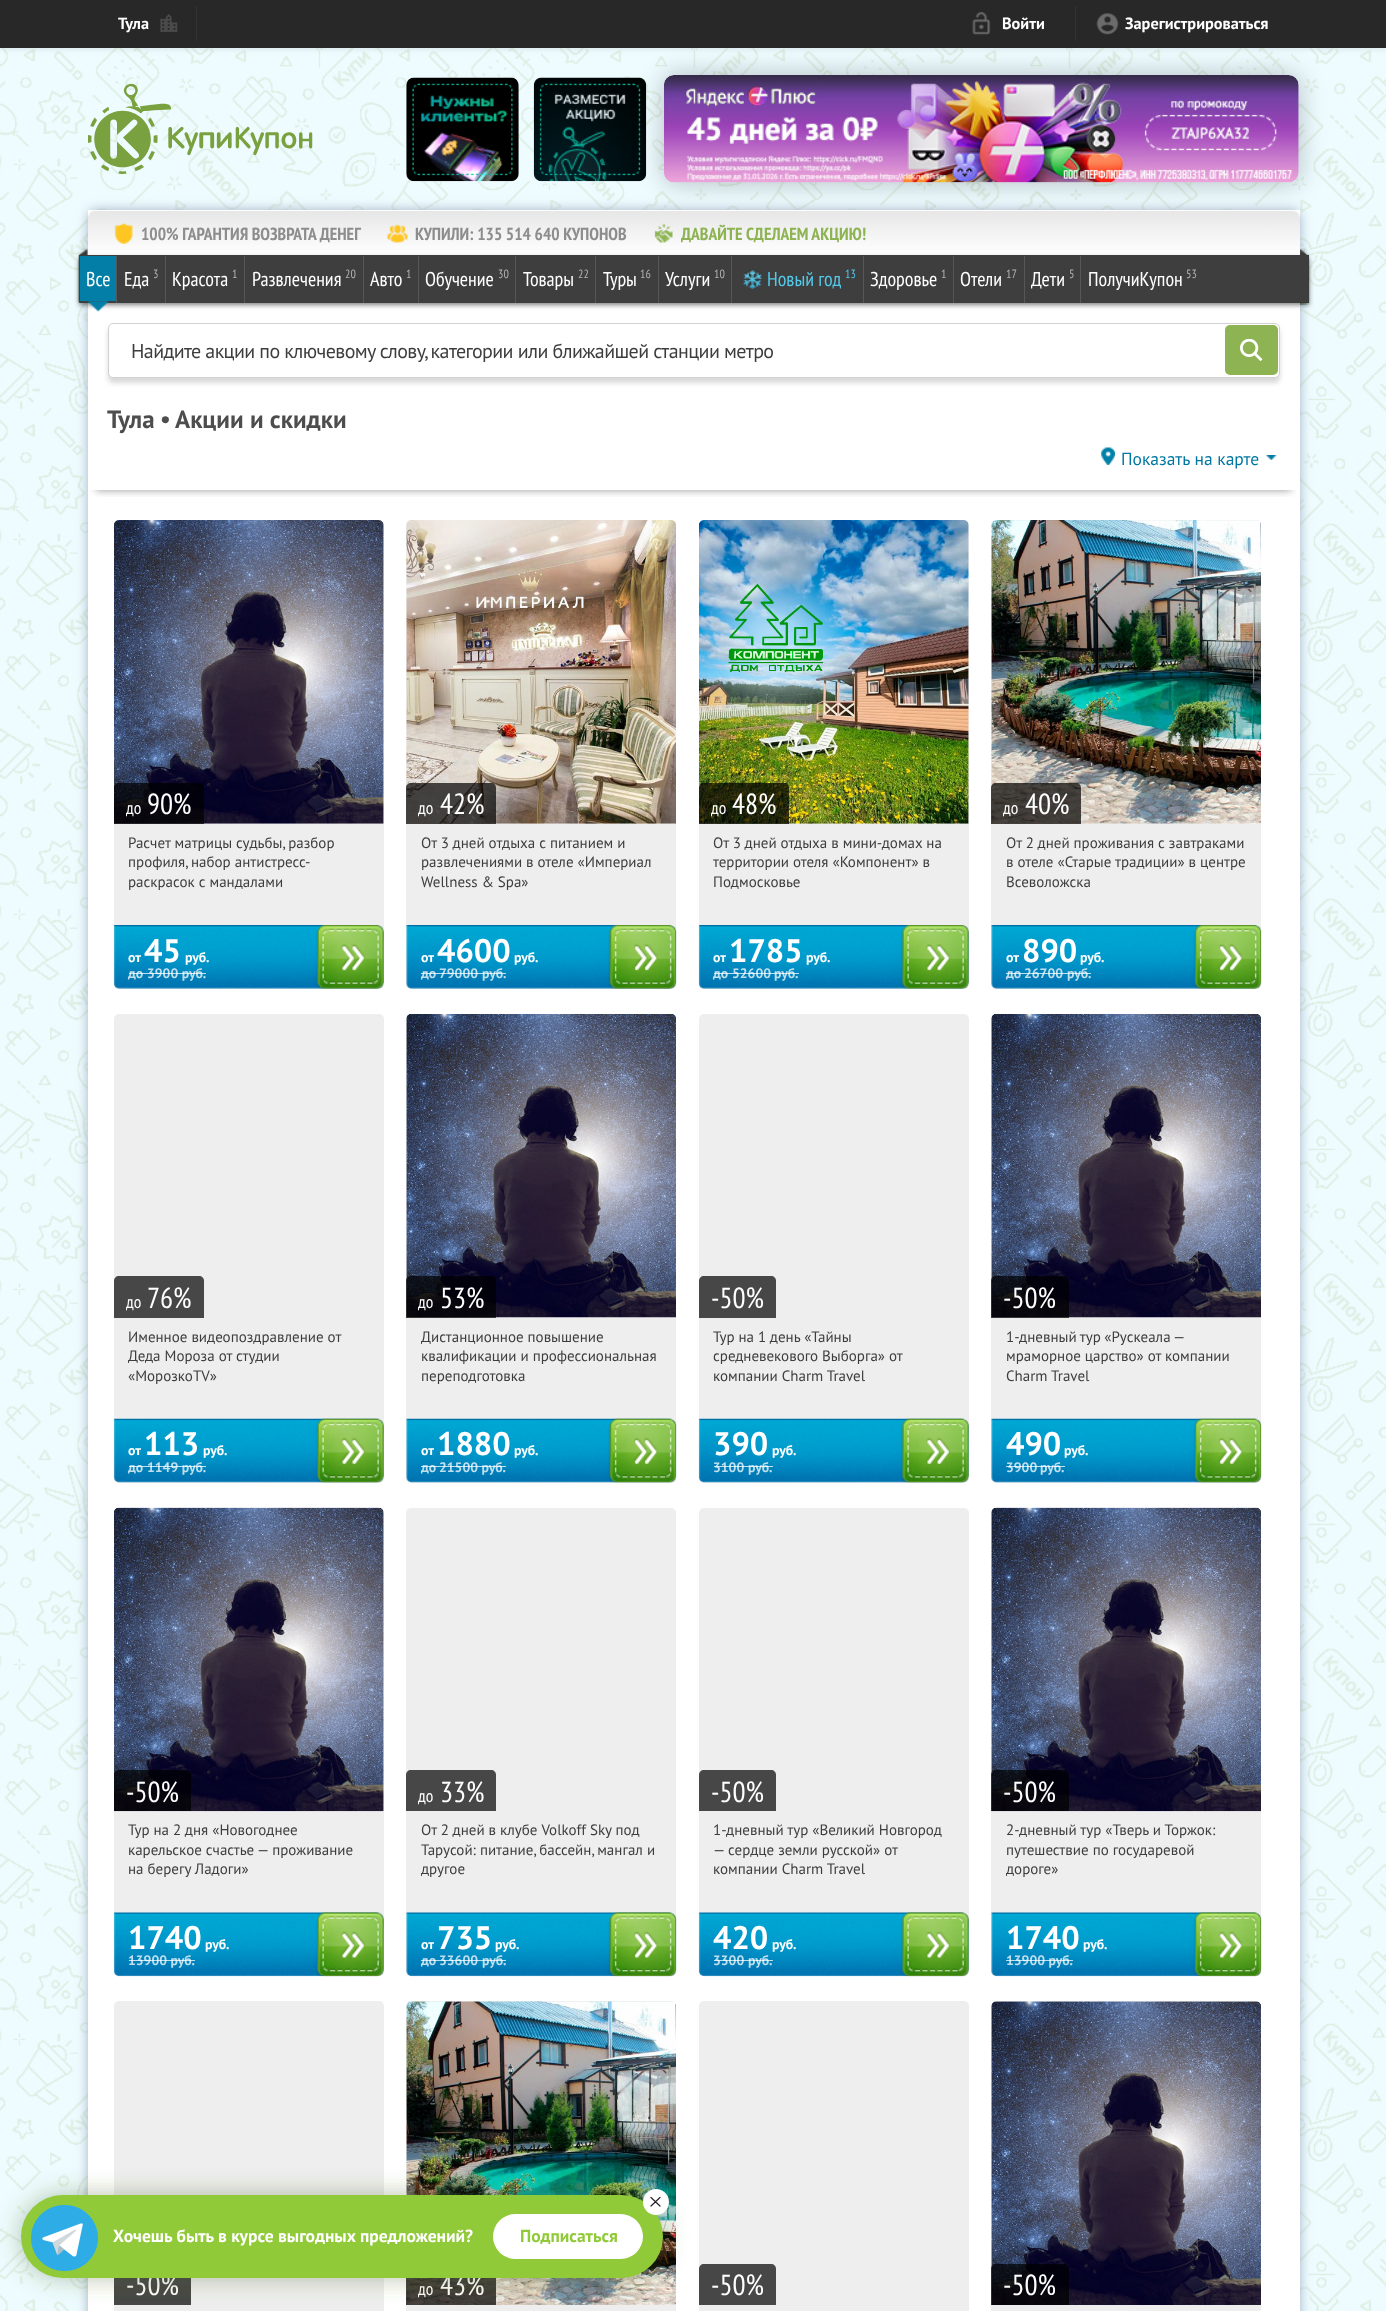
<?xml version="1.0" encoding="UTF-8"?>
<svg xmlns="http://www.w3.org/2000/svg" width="1386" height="2311">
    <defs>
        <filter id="blur1" x="-50%" y="-200%" width="200%" height="500%"><feGaussianBlur stdDeviation="2.5"/></filter>
        <filter id="blur2" x="-50%" y="-200%" width="200%" height="500%"><feGaussianBlur stdDeviation="13"/></filter>
        <filter id="blur3" x="-50%" y="-200%" width="200%" height="500%"><feGaussianBlur stdDeviation="6"/></filter>
        <linearGradient id="g1" gradientUnits="userSpaceOnUse" x1="694" y1="210" x2="694" y2="255"><stop offset="0" stop-color="#E6E6E7"/><stop offset="1" stop-color="#FFFFFF"/></linearGradient>
        <clipPath id="clip1"><rect x="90" y="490" width="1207" height="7"/></clipPath>
        <filter id="blur4" x="-50%" y="-200%" width="200%" height="500%"><feGaussianBlur stdDeviation="4.5"/></filter>
        <filter id="blur5" x="-50%" y="-200%" width="200%" height="500%"><feGaussianBlur stdDeviation="12.5"/></filter>
    </defs>
    <rect width="100%" height="100%" fill="#FFFFFF"/>
    <image x="0" y="48" width="1386" height="2263" href="img_01.png"/>
    <rect x="0" y="3" width="1386" height="47" fill="#000000" fill-opacity="0.07" filter="url(#blur1)"/>
    <image x="533" y="77" width="114" height="105" href="img_07.png"/>
    <image x="1298" y="75" width="2" height="2" href="img_09.png"/>
    <rect x="664" y="75" width="635" height="108" rx="10" fill="#000000" fill-opacity="0.25" filter="url(#blur2)"/>
    <rect x="0" y="0" width="1386" height="48" fill="#282828"/>
    <text x="118" y="29" font-family="PT Sans" font-size="16.25" font-weight="700" fill="#FFFFFF">Тула</text>
    <image x="160" y="14" width="18" height="18" href="img_02.png"/>
    <rect x="196" y="6" width="1" height="35" fill="#333333"/>
    <image x="972" y="12" width="19" height="23" href="img_03.png"/>
    <text x="1002" y="29" font-family="PT Sans" font-size="16.25" font-weight="700" fill="#FFFFFF">Войти</text>
    <rect x="1075" y="6" width="1" height="35" fill="#333333"/>
    <image x="1096" y="13" width="23" height="22" href="img_04.png"/>
    <text x="1125" y="29" font-family="PT Sans" font-size="16.25" font-weight="700" fill="#FFFFFF">Зарегистрироваться</text>
    <image x="88" y="84" width="225" height="90" href="img_05.png"/>
    <image x="406" y="77" width="113" height="105" href="img_06.png"/>
    <image x="664" y="75" width="635" height="108" href="img_08.png"/>
    <rect x="88" y="210" width="1212" height="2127" rx="8" fill="#909EB7" fill-opacity="0.8" filter="url(#blur3)"/>
    <rect x="88" y="210" width="1212" height="2101" fill="#FFFFFF"/>
    <path d="M 96 210 H 1292 C 1296.5 210 1300 213.5 1300 218 V 255 H 88 V 218 C 88 213.5 91.5 210 96 210 Z" fill="url(#g1)"/>
    <path d="M 95 211 H 1292 C 1297 211 1300 215 1300 219 V 218 C 1300 214 1296 210 1292 210 H 96 C 92 210 88 214 88 218 V 219 C 88 215 91 211 95 211 Z" fill="#FFFFFF"/>
    <image x="114" y="223" width="19" height="21" href="img_10.png"/>
    <text x="141" y="240" font-family="PT Sans Narrow" font-size="17.5" font-weight="700" fill="#8D8D8D">100% ГАРАНТИЯ ВОЗВРАТА ДЕНЕГ</text>
    <image x="387" y="224" width="21" height="19" href="img_11.png"/>
    <text x="415" y="240" font-family="PT Sans Narrow" font-size="17.5" font-weight="700" fill="#8D8D8D">КУПИЛИ: 135 514 640 КУПОНОВ</text>
    <image x="654" y="223" width="19" height="20" href="img_12.png"/>
    <text x="681" y="240" font-family="PT Sans Narrow" font-size="17.5" font-weight="700" fill="#8DB352">ДАВАЙТЕ СДЕЛАЕМ АКЦИЮ!</text>
    <rect x="79" y="258" width="1230" height="47" fill="#000000" fill-opacity="0.5" filter="url(#blur1)"/>
    <rect x="79" y="255" width="1230" height="48" fill="#3E3E3E"/>
    <rect x="79" y="256" width="1" height="47" fill="#575757"/>
    <image x="77" y="248" width="11" height="55" href="img_13.png"/>
    <rect x="80" y="256" width="36" height="45" fill="#037FA7"/>
    <text x="86" y="286" font-family="PT Sans Narrow" font-size="20" fill="#FFFFFF">Все</text>
    <g clip-path="url(#clip1)">
        <rect x="96" y="320" width="1195" height="170" fill="#000000" fill-opacity="0.42" filter="url(#blur4)"/>
    </g>
    <image x="87" y="301" width="22" height="11" href="img_14.png"/>
    <rect x="116" y="256" width="1" height="47" fill="#575757"/>
    <text x="124" y="286" font-family="PT Sans Narrow" font-size="20" fill="#FFFFFF">Еда</text>
    <text x="153" y="278" font-family="PT Sans Narrow" font-size="12" fill="#B2B2B2">3</text>
    <rect x="165" y="256" width="1" height="47" fill="#575757"/>
    <text x="172" y="286" font-family="PT Sans Narrow" font-size="20" fill="#FFFFFF">Красота</text>
    <text x="232" y="278" font-family="PT Sans Narrow" font-size="12" fill="#B2B2B2">1</text>
    <rect x="244" y="256" width="1" height="47" fill="#575757"/>
    <text x="252" y="286" font-family="PT Sans Narrow" font-size="20" fill="#FFFFFF">Развлечения</text>
    <text x="345" y="278" font-family="PT Sans Narrow" font-size="12" fill="#B2B2B2">20</text>
    <rect x="363" y="256" width="1" height="47" fill="#575757"/>
    <text x="370" y="286" font-family="PT Sans Narrow" font-size="20" fill="#FFFFFF">Авто</text>
    <text x="406" y="278" font-family="PT Sans Narrow" font-size="12" fill="#B2B2B2">1</text>
    <rect x="418" y="256" width="1" height="47" fill="#575757"/>
    <text x="425" y="286" font-family="PT Sans Narrow" font-size="20" fill="#FFFFFF">Обучение</text>
    <text x="498" y="278" font-family="PT Sans Narrow" font-size="12" fill="#B2B2B2">30</text>
    <rect x="515" y="256" width="1" height="47" fill="#575757"/>
    <text x="523" y="286" font-family="PT Sans Narrow" font-size="20" fill="#FFFFFF">Товары</text>
    <text x="578" y="278" font-family="PT Sans Narrow" font-size="12" fill="#B2B2B2">22</text>
    <rect x="595" y="256" width="1" height="47" fill="#575757"/>
    <text x="603" y="286" font-family="PT Sans Narrow" font-size="20" fill="#FFFFFF">Туры</text>
    <text x="640" y="278" font-family="PT Sans Narrow" font-size="12" fill="#B2B2B2">16</text>
    <rect x="658" y="256" width="1" height="47" fill="#575757"/>
    <text x="665" y="286" font-family="PT Sans Narrow" font-size="20" fill="#FFFFFF">Услуги</text>
    <text x="714" y="278" font-family="PT Sans Narrow" font-size="12" fill="#B2B2B2">10</text>
    <rect x="731" y="256" width="1" height="47" fill="#575757"/>
    <image x="743" y="269" width="19" height="20" href="img_15.png"/>
    <text x="767" y="286" font-family="PT Sans Narrow" font-size="20" fill="#54C9EA">Новый год</text>
    <text x="845" y="278" font-family="PT Sans Narrow" font-size="12" fill="#54C9EA">13</text>
    <rect x="863" y="256" width="1" height="47" fill="#575757"/>
    <text x="870" y="286" font-family="PT Sans Narrow" font-size="20" fill="#FFFFFF">Здоровье</text>
    <text x="941" y="278" font-family="PT Sans Narrow" font-size="12" fill="#B2B2B2">1</text>
    <rect x="953" y="256" width="1" height="47" fill="#575757"/>
    <text x="960" y="286" font-family="PT Sans Narrow" font-size="20" fill="#FFFFFF">Отели</text>
    <text x="1006" y="278" font-family="PT Sans Narrow" font-size="12" fill="#B2B2B2">17</text>
    <rect x="1024" y="256" width="1" height="47" fill="#575757"/>
    <text x="1031" y="286" font-family="PT Sans Narrow" font-size="20" fill="#FFFFFF">Дети</text>
    <text x="1069" y="278" font-family="PT Sans Narrow" font-size="12" fill="#B2B2B2">5</text>
    <rect x="1080" y="256" width="1" height="47" fill="#575757"/>
    <text x="1088" y="286" font-family="PT Sans Narrow" font-size="20" fill="#FFFFFF">ПолучиКупон</text>
    <text x="1186" y="278" font-family="PT Sans Narrow" font-size="12" fill="#B2B2B2">53</text>
    <image x="1300" y="248" width="10" height="57" href="img_16.png"/>
    <rect x="108" y="328" width="1172" height="55" rx="5" fill="#000000" fill-opacity="0.15" filter="url(#blur1)"/>
    <rect x="108.5" y="323.5" width="1171" height="54" rx="4.5" fill="#FFFFFF" stroke="#D1D1D1"/>
    <text x="131" y="358" font-family="PT Sans" font-size="20" letter-spacing="-0.6" fill="#3D3D3D">Найдите акции по ключевому слову, категории или ближайшей станции метро</text>
    <rect x="1225" y="325" width="53" height="50" rx="5" fill="#8DB352"/>
    <image x="1240" y="339" width="23" height="22" href="img_17.png"/>
    <text x="107" y="428" font-family="PT Sans" font-size="25" font-weight="700" fill="#4D4D4D">Тула</text>
    <text x="161" y="428" font-family="Liberation Sans" font-size="25" font-weight="700" fill="#4D4D4D">•</text>
    <text x="175" y="428" font-family="PT Sans" font-size="25" font-weight="700" fill="#4D4D4D">Акции и скидки</text>
    <image x="1101" y="447" width="14" height="18" href="img_18.png"/>
    <text x="1121" y="465" font-family="PT Sans" font-size="17.5" fill="#0077A1">Показать на карте</text>
    <image x="1266" y="455" width="11" height="5" href="img_19.png"/>
    <rect x="114" y="520" width="270" height="469" rx="5" fill="#EEEEEE"/>
    <image x="114" y="520" width="270" height="304" href="img_20.png"/>
    <path d="M 119 783 H 199 C 202 783 204 785 204 788 V 824 H 114 V 788 C 114 785 116 783 119 783 Z" fill="#000000" fill-opacity="0.7"/>
    <text x="126" y="814" font-family="PT Sans Narrow" font-size="17.5" fill="#FFFFFF">до</text>
    <text x="147" y="814" font-family="PT Sans Narrow" font-size="29" fill="#FFFFFF">90%</text>
    <text font-family="PT Sans" font-size="15" fill="#3D3D3D">
        <tspan x="128" y="848">Расчет матрицы судьбы, разбор</tspan>
        <tspan x="128" y="867">профиля, набор антистресс-</tspan>
        <tspan x="128" y="887">раскрасок с мандалами</tspan>
    </text>
    <image x="113" y="925" width="271" height="64" href="img_21.png"/>
    <text x="128" y="962" font-family="PT Sans" font-size="13.75" font-weight="700" fill="#FFFFFF">от</text>
    <text x="144" y="962" font-family="PT Sans" font-size="32.5" font-weight="700" fill="#FFFFFF">45</text>
    <text x="185" y="962" font-family="PT Sans" font-size="13.75" font-weight="700" fill="#FFFFFF">руб.</text>
    <text x="128" y="978" font-family="PT Sans" font-size="13.75" font-weight="700" fill="#BFDFEE">до</text>
    <rect x="129" y="973" width="17" height="1" fill="#FFFFFF" fill-opacity="0.75"/>
    <text x="147" y="978" font-family="PT Sans" font-size="13.75" font-weight="700" fill="#BFDFEE">3900 руб.</text>
    <rect x="146" y="973" width="32" height="1" fill="#FFFFFF" fill-opacity="0.75"/>
    <rect x="178" y="973" width="28" height="1" fill="#FFFFFF" fill-opacity="0.75"/>
    <image x="316" y="925" width="68" height="64" href="img_22.png"/>
    <rect x="406" y="520" width="270" height="469" rx="5" fill="#EEEEEE"/>
    <image x="406" y="520" width="270" height="304" href="img_23.png"/>
    <path d="M 411 783 H 491 C 494 783 496 785 496 788 V 824 H 406 V 788 C 406 785 408 783 411 783 Z" fill="#000000" fill-opacity="0.7"/>
    <text x="418" y="814" font-family="PT Sans Narrow" font-size="17.5" fill="#FFFFFF">до</text>
    <text x="440" y="814" font-family="PT Sans Narrow" font-size="29" fill="#FFFFFF">42%</text>
    <text font-family="PT Sans" font-size="15" fill="#3D3D3D">
        <tspan x="421" y="848">От 3 дней отдыха с питанием и</tspan>
        <tspan x="421" y="867">развлечениями в отеле «Империал</tspan>
        <tspan x="421" y="887">Wellness &amp; Spa»</tspan>
    </text>
    <image x="406" y="925" width="271" height="64" href="img_24.png"/>
    <text x="421" y="962" font-family="PT Sans" font-size="13.75" font-weight="700" fill="#FFFFFF">от</text>
    <text x="437" y="962" font-family="PT Sans" font-size="32.5" font-weight="700" fill="#FFFFFF">4600</text>
    <text x="514" y="962" font-family="PT Sans" font-size="13.75" font-weight="700" fill="#FFFFFF">руб.</text>
    <text x="421" y="978" font-family="PT Sans" font-size="13.75" font-weight="700" fill="#BFDFEE">до</text>
    <text x="439" y="978" font-family="PT Sans" font-size="13.75" font-weight="700" fill="#BFDFEE">79000</text>
    <rect x="421" y="973" width="18" height="1" fill="#FFFFFF" fill-opacity="0.75"/>
    <rect x="439" y="973" width="40" height="1" fill="#FFFFFF" fill-opacity="0.75"/>
    <text x="482" y="978" font-family="PT Sans" font-size="13.75" font-weight="700" fill="#BFDFEE">руб.</text>
    <rect x="479" y="973" width="27" height="1" fill="#FFFFFF" fill-opacity="0.75"/>
    <image x="608" y="925" width="69" height="64" href="img_25.png"/>
    <rect x="699" y="520" width="270" height="469" rx="5" fill="#EEEEEE"/>
    <image x="699" y="520" width="270" height="304" href="img_26.png"/>
    <path d="M 704 783 H 784 C 787 783 789 785 789 788 V 824 H 699 V 788 C 699 785 701 783 704 783 Z" fill="#000000" fill-opacity="0.7"/>
    <text x="711" y="814" font-family="PT Sans Narrow" font-size="17.5" fill="#FFFFFF">до</text>
    <text x="732" y="814" font-family="PT Sans Narrow" font-size="29" fill="#FFFFFF">48%</text>
    <text font-family="PT Sans" font-size="15" fill="#3D3D3D">
        <tspan x="713" y="848">От 3 дней отдыха в мини-домах на</tspan>
        <tspan x="713" y="867">территории отеля «Компонент» в</tspan>
        <tspan x="713" y="887">Подмосковье</tspan>
    </text>
    <image x="698" y="925" width="271" height="64" href="img_27.png"/>
    <text x="713" y="962" font-family="PT Sans" font-size="13.75" font-weight="700" fill="#FFFFFF">от</text>
    <text x="729" y="962" font-family="PT Sans" font-size="32.5" font-weight="700" fill="#FFFFFF">1785</text>
    <text x="806" y="962" font-family="PT Sans" font-size="13.75" font-weight="700" fill="#FFFFFF">руб.</text>
    <text x="713" y="978" font-family="PT Sans" font-size="13.75" font-weight="700" fill="#BFDFEE">до</text>
    <text x="732" y="978" font-family="PT Sans" font-size="13.75" font-weight="700" fill="#BFDFEE">52600</text>
    <rect x="714" y="973" width="17" height="1" fill="#FFFFFF" fill-opacity="0.75"/>
    <rect x="731" y="973" width="40" height="1" fill="#FFFFFF" fill-opacity="0.75"/>
    <text x="774" y="978" font-family="PT Sans" font-size="13.75" font-weight="700" fill="#BFDFEE">руб.</text>
    <rect x="771" y="973" width="28" height="1" fill="#FFFFFF" fill-opacity="0.75"/>
    <image x="901" y="925" width="68" height="64" href="img_28.png"/>
    <rect x="991" y="520" width="270" height="469" rx="5" fill="#EEEEEE"/>
    <image x="991" y="520" width="270" height="304" href="img_29.png"/>
    <path d="M 996 783 H 1076 C 1079 783 1081 785 1081 788 V 824 H 991 V 788 C 991 785 993 783 996 783 Z" fill="#000000" fill-opacity="0.7"/>
    <text x="1003" y="814" font-family="PT Sans Narrow" font-size="17.5" fill="#FFFFFF">до</text>
    <text x="1025" y="814" font-family="PT Sans Narrow" font-size="29" fill="#FFFFFF">40%</text>
    <text font-family="PT Sans" font-size="15" fill="#3D3D3D">
        <tspan x="1006" y="848">От 2 дней проживания с завтраками</tspan>
        <tspan x="1006" y="867">в отеле «Старые традиции» в центре</tspan>
        <tspan x="1006" y="887">Всеволожска</tspan>
    </text>
    <image x="991" y="925" width="271" height="64" href="img_30.png"/>
    <text x="1006" y="962" font-family="PT Sans" font-size="13.75" font-weight="700" fill="#FFFFFF">от</text>
    <text x="1022" y="962" font-family="PT Sans" font-size="32.5" font-weight="700" fill="#FFFFFF">890</text>
    <text x="1080" y="962" font-family="PT Sans" font-size="13.75" font-weight="700" fill="#FFFFFF">руб.</text>
    <text x="1006" y="978" font-family="PT Sans" font-size="13.75" font-weight="700" fill="#BFDFEE">до</text>
    <text x="1024" y="978" font-family="PT Sans" font-size="13.75" font-weight="700" fill="#BFDFEE">26700</text>
    <rect x="1006" y="973" width="18" height="1" fill="#FFFFFF" fill-opacity="0.75"/>
    <rect x="1024" y="973" width="40" height="1" fill="#FFFFFF" fill-opacity="0.75"/>
    <text x="1067" y="978" font-family="PT Sans" font-size="13.75" font-weight="700" fill="#BFDFEE">руб.</text>
    <rect x="1064" y="973" width="27" height="1" fill="#FFFFFF" fill-opacity="0.75"/>
    <image x="1193" y="925" width="69" height="64" href="img_31.png"/>
    <rect x="114" y="1014" width="270" height="469" rx="5" fill="#EEEEEE"/>
    <path d="M 119 1276 H 199 C 202 1276 204 1278 204 1281 V 1318 H 114 V 1281 C 114 1278 116 1276 119 1276 Z" fill="#474747"/>
    <text x="126" y="1308" font-family="PT Sans Narrow" font-size="17.5" fill="#FFFFFF">до</text>
    <text x="147" y="1308" font-family="PT Sans Narrow" font-size="29" fill="#FFFFFF">76%</text>
    <text font-family="PT Sans" font-size="15" fill="#3D3D3D">
        <tspan x="128" y="1342">Именное видеопоздравление от</tspan>
        <tspan x="128" y="1361">Деда Мороза от студии</tspan>
        <tspan x="128" y="1381">«МорозкоTV»</tspan>
    </text>
    <image x="113" y="1418" width="271" height="65" href="img_32.png"/>
    <text x="128" y="1455" font-family="PT Sans" font-size="13.75" font-weight="700" fill="#FFFFFF">от</text>
    <text x="144" y="1455" font-family="PT Sans" font-size="32.5" font-weight="700" fill="#FFFFFF">113</text>
    <text x="203" y="1455" font-family="PT Sans" font-size="13.75" font-weight="700" fill="#FFFFFF">руб.</text>
    <text x="128" y="1472" font-family="PT Sans" font-size="13.75" font-weight="700" fill="#BFDFEE">до</text>
    <rect x="129" y="1466" width="17" height="1" fill="#FFFFFF" fill-opacity="0.75"/>
    <text x="147" y="1472" font-family="PT Sans" font-size="13.75" font-weight="700" fill="#BFDFEE">1149 руб.</text>
    <rect x="146" y="1466" width="32" height="1" fill="#FFFFFF" fill-opacity="0.75"/>
    <rect x="178" y="1466" width="28" height="1" fill="#FFFFFF" fill-opacity="0.75"/>
    <image x="316" y="1418" width="68" height="65" href="img_33.png"/>
    <rect x="406" y="1014" width="270" height="469" rx="5" fill="#EEEEEE"/>
    <image x="406" y="1014" width="270" height="304" href="img_34.png"/>
    <path d="M 411 1276 H 491 C 494 1276 496 1278 496 1281 V 1318 H 406 V 1281 C 406 1278 408 1276 411 1276 Z" fill="#000000" fill-opacity="0.7"/>
    <text x="418" y="1308" font-family="PT Sans Narrow" font-size="17.5" fill="#FFFFFF">до</text>
    <text x="440" y="1308" font-family="PT Sans Narrow" font-size="29" fill="#FFFFFF">53%</text>
    <text font-family="PT Sans" font-size="15" fill="#3D3D3D">
        <tspan x="421" y="1342">Дистанционное повышение</tspan>
        <tspan x="421" y="1361">квалификации и профессиональная</tspan>
        <tspan x="421" y="1381">переподготовка</tspan>
    </text>
    <image x="406" y="1418" width="271" height="65" href="img_35.png"/>
    <text x="421" y="1455" font-family="PT Sans" font-size="13.75" font-weight="700" fill="#FFFFFF">от</text>
    <text x="437" y="1455" font-family="PT Sans" font-size="32.5" font-weight="700" fill="#FFFFFF">1880</text>
    <text x="514" y="1455" font-family="PT Sans" font-size="13.75" font-weight="700" fill="#FFFFFF">руб.</text>
    <text x="421" y="1472" font-family="PT Sans" font-size="13.75" font-weight="700" fill="#BFDFEE">до</text>
    <rect x="421" y="1466" width="18" height="1" fill="#FFFFFF" fill-opacity="0.75"/>
    <text x="439" y="1472" font-family="PT Sans" font-size="13.75" font-weight="700" fill="#BFDFEE">21500 руб.</text>
    <rect x="439" y="1466" width="40" height="1" fill="#FFFFFF" fill-opacity="0.75"/>
    <rect x="479" y="1466" width="27" height="1" fill="#FFFFFF" fill-opacity="0.75"/>
    <image x="608" y="1418" width="69" height="65" href="img_36.png"/>
    <rect x="699" y="1014" width="270" height="469" rx="5" fill="#EEEEEE"/>
    <path d="M 704 1276 H 771 C 774 1276 776 1278 776 1281 V 1318 H 699 V 1281 C 699 1278 701 1276 704 1276 Z" fill="#474747"/>
    <text x="711" y="1308" font-family="PT Sans Narrow" font-size="29" fill="#FFFFFF">-50%</text>
    <text font-family="PT Sans" font-size="15" fill="#3D3D3D">
        <tspan x="713" y="1342">Тур на 1 день «Тайны</tspan>
        <tspan x="713" y="1361">средневекового Выборга» от</tspan>
        <tspan x="713" y="1381">компании Charm Travel</tspan>
    </text>
    <image x="698" y="1418" width="271" height="65" href="img_37.png"/>
    <text x="713" y="1455" font-family="PT Sans" font-size="32.5" font-weight="700" fill="#FFFFFF">390</text>
    <text x="772" y="1455" font-family="PT Sans" font-size="13.75" font-weight="700" fill="#FFFFFF">руб.</text>
    <text x="713" y="1472" font-family="PT Sans" font-size="13.75" font-weight="700" fill="#BFDFEE">3100</text>
    <rect x="714" y="1466" width="30" height="1" fill="#FFFFFF" fill-opacity="0.75"/>
    <text x="748" y="1472" font-family="PT Sans" font-size="13.75" font-weight="700" fill="#BFDFEE">руб.</text>
    <rect x="744" y="1466" width="29" height="1" fill="#FFFFFF" fill-opacity="0.75"/>
    <image x="901" y="1418" width="68" height="65" href="img_33.png"/>
    <rect x="991" y="1014" width="270" height="469" rx="5" fill="#EEEEEE"/>
    <image x="991" y="1014" width="270" height="304" href="img_38.png"/>
    <path d="M 996 1276 H 1064 C 1067 1276 1069 1278 1069 1281 V 1318 H 991 V 1281 C 991 1278 993 1276 996 1276 Z" fill="#000000" fill-opacity="0.7"/>
    <text x="1003" y="1308" font-family="PT Sans Narrow" font-size="29" fill="#FFFFFF">-50%</text>
    <text font-family="PT Sans" font-size="15" fill="#3D3D3D">
        <tspan x="1006" y="1342" word-spacing="-0.5">1-дневный тур «Рускеала —</tspan>
        <tspan x="1006" y="1361">мраморное царство» от компании</tspan>
        <tspan x="1006" y="1381">Charm Travel</tspan>
    </text>
    <image x="991" y="1418" width="271" height="65" href="img_39.png"/>
    <text x="1006" y="1455" font-family="PT Sans" font-size="32.5" font-weight="700" fill="#FFFFFF">490</text>
    <text x="1064" y="1455" font-family="PT Sans" font-size="13.75" font-weight="700" fill="#FFFFFF">руб.</text>
    <text x="1006" y="1472" font-family="PT Sans" font-size="13.75" font-weight="700" fill="#BFDFEE">3900</text>
    <rect x="1006" y="1466" width="30" height="1" fill="#FFFFFF" fill-opacity="0.75"/>
    <text x="1040" y="1472" font-family="PT Sans" font-size="13.75" font-weight="700" fill="#BFDFEE">руб.</text>
    <rect x="1036" y="1466" width="29" height="1" fill="#FFFFFF" fill-opacity="0.75"/>
    <image x="1193" y="1418" width="69" height="65" href="img_40.png"/>
    <rect x="114" y="1508" width="270" height="468" rx="5" fill="#EEEEEE"/>
    <image x="114" y="1507" width="270" height="305" href="img_41.png"/>
    <path d="M 119 1770 H 186 C 189 1770 191 1772 191 1775 V 1811 H 114 V 1775 C 114 1772 116 1770 119 1770 Z" fill="#000000" fill-opacity="0.7"/>
    <text x="126" y="1802" font-family="PT Sans Narrow" font-size="29" fill="#FFFFFF">-50%</text>
    <text font-family="PT Sans" font-size="15" fill="#3D3D3D">
        <tspan x="128" y="1835">Тур на 2 дня «Новогоднее</tspan>
        <tspan x="128" y="1855">карельское счастье — проживание</tspan>
        <tspan x="128" y="1874">на берегу Ладоги»</tspan>
    </text>
    <image x="113" y="1912" width="271" height="65" href="img_42.png"/>
    <text x="128" y="1949" font-family="PT Sans" font-size="32.5" font-weight="700" fill="#FFFFFF">1740</text>
    <text x="205" y="1949" font-family="PT Sans" font-size="13.75" font-weight="700" fill="#FFFFFF">руб.</text>
    <text x="128" y="1965" font-family="PT Sans" font-size="13.75" font-weight="700" fill="#BFDFEE">13900 руб.</text>
    <rect x="129" y="1960" width="39" height="1" fill="#FFFFFF" fill-opacity="0.75"/>
    <rect x="168" y="1960" width="27" height="1" fill="#FFFFFF" fill-opacity="0.75"/>
    <image x="316" y="1912" width="68" height="65" href="img_43.png"/>
    <rect x="406" y="1508" width="270" height="468" rx="5" fill="#EEEEEE"/>
    <path d="M 411 1770 H 491 C 494 1770 496 1772 496 1775 V 1811 H 406 V 1775 C 406 1772 408 1770 411 1770 Z" fill="#474747"/>
    <text x="418" y="1802" font-family="PT Sans Narrow" font-size="17.5" fill="#FFFFFF">до</text>
    <text x="440" y="1802" font-family="PT Sans Narrow" font-size="29" fill="#FFFFFF">33%</text>
    <text font-family="PT Sans" font-size="15" fill="#3D3D3D">
        <tspan x="421" y="1835">От 2 дней в клубе Volkoff Sky под</tspan>
        <tspan x="421" y="1855">Тарусой: питание, бассейн, мангал и</tspan>
        <tspan x="421" y="1874">другое</tspan>
    </text>
    <image x="406" y="1912" width="271" height="65" href="img_44.png"/>
    <text x="421" y="1949" font-family="PT Sans" font-size="13.75" font-weight="700" fill="#FFFFFF">от</text>
    <text x="437" y="1949" font-family="PT Sans" font-size="32.5" font-weight="700" fill="#FFFFFF">735</text>
    <text x="495" y="1949" font-family="PT Sans" font-size="13.75" font-weight="700" fill="#FFFFFF">руб.</text>
    <text x="421" y="1965" font-family="PT Sans" font-size="13.75" font-weight="700" fill="#BFDFEE">до</text>
    <text x="439" y="1965" font-family="PT Sans" font-size="13.75" font-weight="700" fill="#BFDFEE">33600</text>
    <rect x="421" y="1960" width="18" height="1" fill="#FFFFFF" fill-opacity="0.75"/>
    <rect x="439" y="1960" width="40" height="1" fill="#FFFFFF" fill-opacity="0.75"/>
    <text x="482" y="1965" font-family="PT Sans" font-size="13.75" font-weight="700" fill="#BFDFEE">руб.</text>
    <rect x="479" y="1960" width="27" height="1" fill="#FFFFFF" fill-opacity="0.75"/>
    <image x="608" y="1912" width="69" height="65" href="img_45.png"/>
    <rect x="699" y="1508" width="270" height="468" rx="5" fill="#EEEEEE"/>
    <path d="M 704 1770 H 771 C 774 1770 776 1772 776 1775 V 1811 H 699 V 1775 C 699 1772 701 1770 704 1770 Z" fill="#474747"/>
    <text x="711" y="1802" font-family="PT Sans Narrow" font-size="29" fill="#FFFFFF">-50%</text>
    <text font-family="PT Sans" font-size="15" fill="#3D3D3D">
        <tspan x="713" y="1835">1-дневный тур «Великий Новгород</tspan>
        <tspan x="713" y="1855">— сердце земли русской» от</tspan>
        <tspan x="713" y="1874">компании Charm Travel</tspan>
    </text>
    <image x="698" y="1912" width="271" height="65" href="img_46.png"/>
    <text x="713" y="1949" font-family="PT Sans" font-size="32.5" font-weight="700" fill="#FFFFFF">420</text>
    <text x="772" y="1949" font-family="PT Sans" font-size="13.75" font-weight="700" fill="#FFFFFF">руб.</text>
    <text x="713" y="1965" font-family="PT Sans" font-size="13.75" font-weight="700" fill="#BFDFEE">3300</text>
    <rect x="714" y="1960" width="30" height="1" fill="#FFFFFF" fill-opacity="0.75"/>
    <text x="748" y="1965" font-family="PT Sans" font-size="13.75" font-weight="700" fill="#BFDFEE">руб.</text>
    <rect x="744" y="1960" width="29" height="1" fill="#FFFFFF" fill-opacity="0.75"/>
    <image x="901" y="1912" width="68" height="65" href="img_43.png"/>
    <rect x="991" y="1508" width="270" height="468" rx="5" fill="#EEEEEE"/>
    <image x="991" y="1507" width="270" height="305" href="img_47.png"/>
    <path d="M 996 1770 H 1064 C 1067 1770 1069 1772 1069 1775 V 1811 H 991 V 1775 C 991 1772 993 1770 996 1770 Z" fill="#000000" fill-opacity="0.7"/>
    <text x="1003" y="1802" font-family="PT Sans Narrow" font-size="29" fill="#FFFFFF">-50%</text>
    <text font-family="PT Sans" font-size="15" fill="#3D3D3D">
        <tspan x="1006" y="1835">2-дневный тур «Тверь и Торжок:</tspan>
        <tspan x="1006" y="1855">путешествие по государевой</tspan>
        <tspan x="1006" y="1874">дороге»</tspan>
    </text>
    <image x="991" y="1912" width="271" height="65" href="img_48.png"/>
    <text x="1006" y="1949" font-family="PT Sans" font-size="32.5" font-weight="700" fill="#FFFFFF">1740</text>
    <text x="1083" y="1949" font-family="PT Sans" font-size="13.75" font-weight="700" fill="#FFFFFF">руб.</text>
    <text x="1006" y="1965" font-family="PT Sans" font-size="13.75" font-weight="700" fill="#BFDFEE">13900 руб.</text>
    <rect x="1006" y="1960" width="39" height="1" fill="#FFFFFF" fill-opacity="0.75"/>
    <rect x="1045" y="1960" width="28" height="1" fill="#FFFFFF" fill-opacity="0.75"/>
    <image x="1193" y="1912" width="69" height="65" href="img_49.png"/>
    <rect x="114" y="2001" width="270" height="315" rx="5" fill="#EEEEEE"/>
    <rect x="114" y="2278" width="77" height="27" fill="#474747"/>
    <text x="126" y="2295" font-family="PT Sans Narrow" font-size="29" fill="#FFFFFF">-50%</text>
    <rect x="406" y="2001" width="270" height="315" rx="5" fill="#EEEEEE"/>
    <image x="406" y="2001" width="270" height="304" href="img_50.png"/>
    <rect x="406" y="2278" width="90" height="27" fill="#000000" fill-opacity="0.7"/>
    <text x="418" y="2295" font-family="PT Sans Narrow" font-size="17.5" fill="#FFFFFF">до</text>
    <text x="440" y="2295" font-family="PT Sans Narrow" font-size="29" fill="#FFFFFF">43%</text>
    <rect x="699" y="2001" width="270" height="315" rx="5" fill="#EEEEEE"/>
    <path d="M 704 2264 H 771 C 774 2264 776 2266 776 2269 V 2305 H 699 V 2269 C 699 2266 701 2264 704 2264 Z" fill="#474747"/>
    <text x="711" y="2295" font-family="PT Sans Narrow" font-size="29" fill="#FFFFFF">-50%</text>
    <rect x="991" y="2001" width="270" height="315" rx="5" fill="#EEEEEE"/>
    <image x="991" y="2001" width="270" height="304" href="img_51.png"/>
    <path d="M 996 2264 H 1064 C 1067 2264 1069 2266 1069 2269 V 2305 H 991 V 2269 C 991 2266 993 2264 996 2264 Z" fill="#000000" fill-opacity="0.7"/>
    <text x="1003" y="2295" font-family="PT Sans Narrow" font-size="29" fill="#FFFFFF">-50%</text>
    <rect x="21" y="2195" width="642" height="83" rx="41.5" fill="#4D6922" fill-opacity="0.4" filter="url(#blur5)"/>
    <rect x="21" y="2195" width="642" height="83" rx="41.5" fill="#91CA38"/>
    <circle cx="656" cy="2202" r="13" fill="#FFFFFF"/>
    <path d="M 660 2197.5 L 651 2206 M 660 2206 L 651 2197.5 Z" fill="none" stroke="#27232A" stroke-width="1.2" stroke-linecap="round" stroke-linejoin="round"/>
    <image x="31" y="2205" width="67" height="66" href="img_52.png"/>
    <text x="113" y="2242" font-family="PT Sans" font-size="17.5" font-weight="700" fill="#FFFFFF">Хочешь быть в курсе выгодных предложений?</text>
    <rect x="493" y="2214" width="150" height="45" rx="22.5" fill="#FFFFFF"/>
    <text x="520" y="2242" font-family="PT Sans" font-size="17.5" font-weight="700" fill="#91CA38">Подписаться</text>
</svg>
